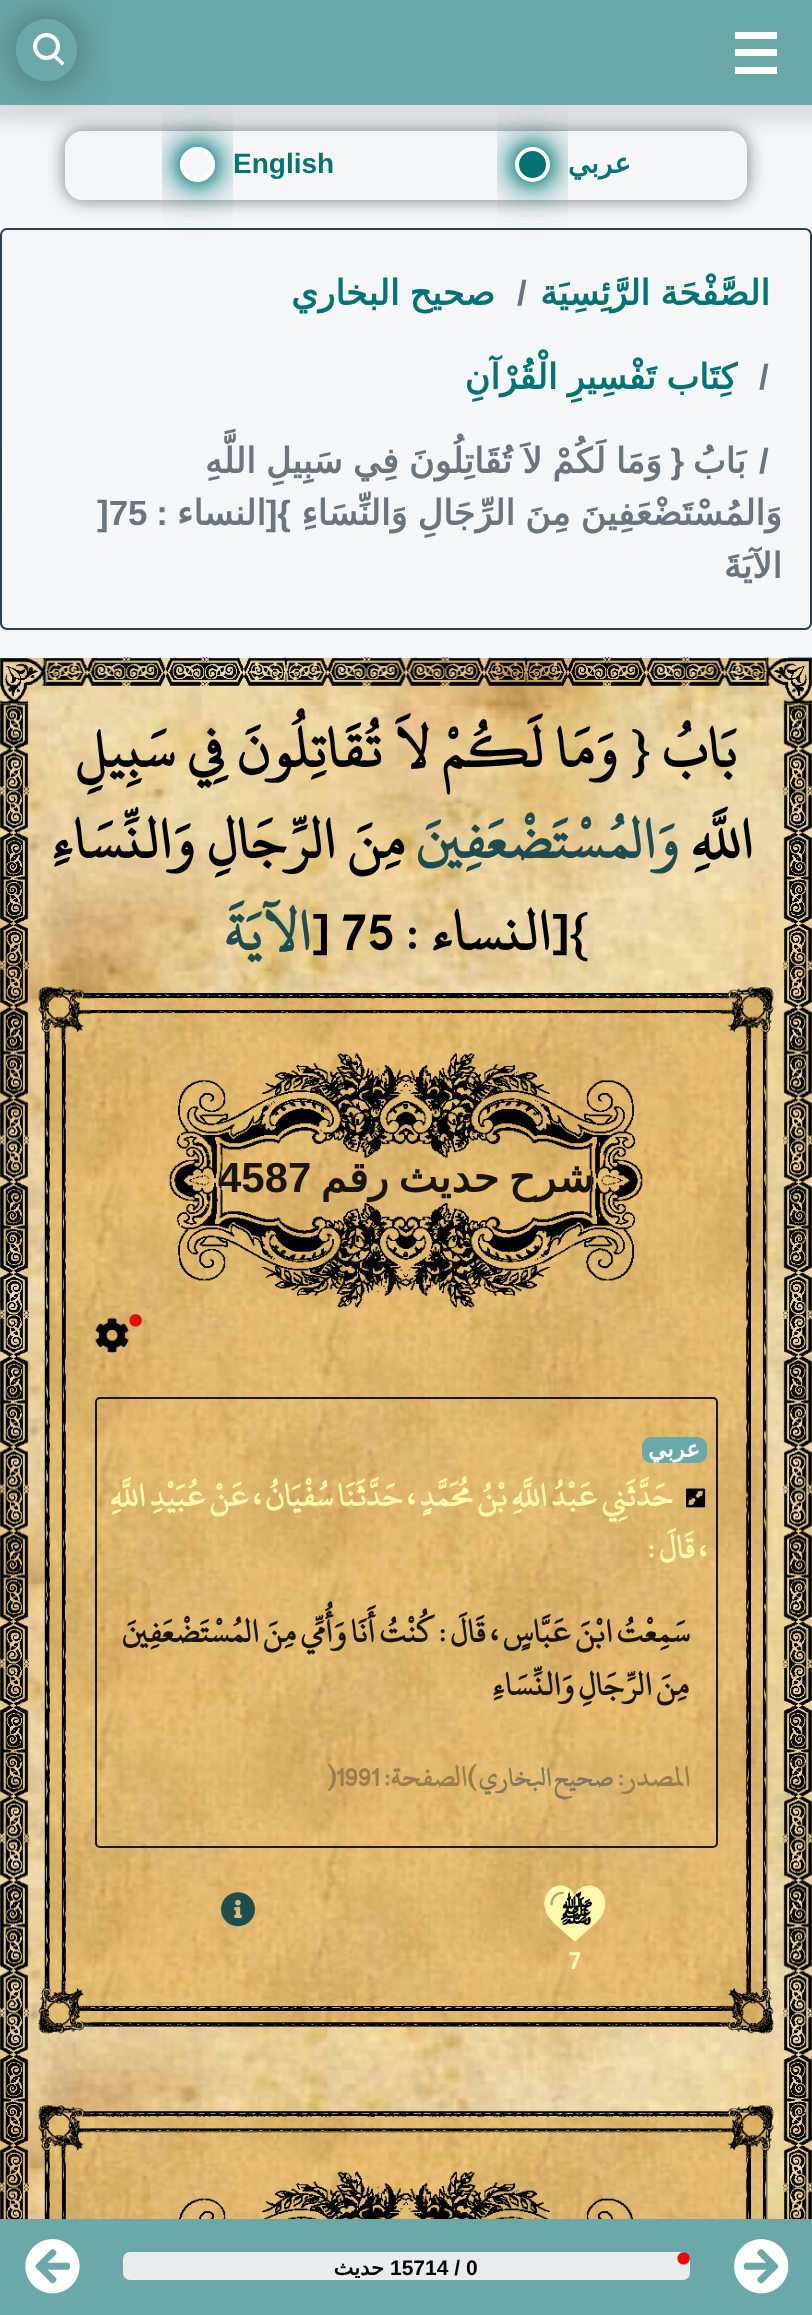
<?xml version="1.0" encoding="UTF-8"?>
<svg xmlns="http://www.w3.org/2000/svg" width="812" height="2315">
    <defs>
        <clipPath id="clip1"><path d="M 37 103 H 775 V 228 H 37 Z M 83 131 H 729 C 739 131 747 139 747 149 V 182 C 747 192 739 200 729 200 H 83 C 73 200 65 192 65 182 V 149 C 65 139 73 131 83 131 Z" clip-rule="evenodd"/></clipPath>
        <filter id="blur1" x="-50%" y="-200%" width="200%" height="500%"><feGaussianBlur stdDeviation="9"/></filter>
        <filter id="blur2" x="-50%" y="-200%" width="200%" height="500%"><feGaussianBlur stdDeviation="26"/></filter>
        <filter id="blur3" x="-50%" y="-200%" width="200%" height="500%"><feGaussianBlur stdDeviation="17.5"/></filter>
        <clipPath id="clip2"><path d="M 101 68 H 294 V 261 H 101 Z M 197.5 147 C 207 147 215 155 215 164.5 C 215 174 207 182 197.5 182 C 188 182 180 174 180 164.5 C 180 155 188 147 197.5 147 Z" clip-rule="evenodd"/></clipPath>
        <clipPath id="clip3"><path d="M 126 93 H 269 V 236 H 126 Z M 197.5 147 C 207 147 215 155 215 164.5 C 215 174 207 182 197.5 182 C 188 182 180 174 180 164.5 C 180 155 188 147 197.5 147 Z" clip-rule="evenodd"/></clipPath>
        <clipPath id="clip4"><path d="M 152 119 H 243 V 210 H 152 Z M 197.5 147 C 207 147 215 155 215 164.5 C 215 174 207 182 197.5 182 C 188 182 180 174 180 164.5 C 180 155 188 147 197.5 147 Z" clip-rule="evenodd"/></clipPath>
        <clipPath id="clip5"><path d="M 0 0 H 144 V 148 H 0 Z M 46.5 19 C 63.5 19 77 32.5 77 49.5 V 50.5 C 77 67.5 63.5 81 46.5 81 C 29.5 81 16 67.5 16 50.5 V 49.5 C 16 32.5 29.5 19 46.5 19 Z" clip-rule="evenodd"/></clipPath>
        <filter id="blur4" x="-50%" y="-200%" width="200%" height="500%"><feGaussianBlur stdDeviation="22"/></filter>
    </defs>
    <rect width="100%" height="100%" fill="#F5F6F7"/>
    <g clip-path="url(#clip1)">
        <rect x="65" y="131" width="682" height="69" rx="18" fill="#000000" fill-opacity="0.5" filter="url(#blur1)"/>
    </g>
    <rect x="1" y="229" width="810" height="400" rx="6" fill="none" stroke="#2C3E50" stroke-width="2"/>
    <rect x="515" y="147" width="35" height="35" rx="17.5" fill="#037375" filter="url(#blur2)"/>
    <rect x="515" y="147" width="35" height="35" rx="17.5" fill="#037375" filter="url(#blur3)"/>
    <rect x="515" y="147" width="35" height="35" rx="17.5" fill="#037375" filter="url(#blur1)"/>
    <circle cx="532.5" cy="164.5" r="15.5" fill="#037375" stroke="#FFFFFF" stroke-width="4"/>
    <g clip-path="url(#clip2)">
        <rect x="180" y="147" width="35" height="35" rx="17.5" fill="#037375" filter="url(#blur2)"/>
    </g>
    <g clip-path="url(#clip3)">
        <rect x="180" y="147" width="35" height="35" rx="17.5" fill="#037375" filter="url(#blur3)"/>
    </g>
    <g clip-path="url(#clip4)">
        <rect x="180" y="147" width="35" height="35" rx="17.5" fill="#037375" filter="url(#blur1)"/>
    </g>
    <circle cx="197.5" cy="164.5" r="15.5" fill="none" stroke="#FFFFFF" stroke-width="4"/>
    <rect x="-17" y="-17" width="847" height="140" fill="#000000" fill-opacity="0.1" filter="url(#blur1)"/>
    <rect x="0" y="0" width="812" height="105" fill="#6BA8A9"/>
    <rect x="735" y="32" width="42" height="7" fill="#FFFFFF"/>
    <rect x="735" y="67" width="42" height="7" fill="#FFFFFF"/>
    <rect x="735" y="49" width="42" height="7" fill="#FFFFFF"/>
    <g clip-path="url(#clip5)">
        <rect x="16" y="19" width="61" height="62" rx="30.5" fill="#000000" fill-opacity="0.4" filter="url(#blur4)"/>
    </g>
    <path d="M 54.5 53.5 L 64.5 63 L 62 65.5 L 52 56 Z" fill="#FFFFFF"/>
    <circle cx="46.5" cy="46.5" r="11.5" fill="none" stroke="#FFFFFF" stroke-width="4"/>
    <text x="631" y="173" font-family="DejaVu Sans" font-size="28" font-weight="700" direction="rtl" fill="#037375">عربي</text>
    <text x="233" y="173" font-family="Liberation Sans" font-size="28" font-weight="700" fill="#037375">English</text>
    <text x="770" y="305" word-spacing="-1" font-family="DejaVu Sans" font-size="35" font-weight="700" direction="rtl" fill="#037375">الصَّفْحَة الرَّئِسِيَة</text>
    <text x="517" y="305" font-family="Liberation Sans" font-size="35" font-weight="700" fill="#6C757D">/</text>
    <text x="495" y="305" word-spacing="-1" font-family="DejaVu Sans" font-size="35" font-weight="700" direction="rtl" fill="#037375">صحيح البخاري</text>
    <text x="759" y="389" font-family="Liberation Sans" font-size="35" font-weight="700" fill="#6C757D">/</text>
    <text x="737" y="389" word-spacing="-1" font-family="DejaVu Sans" font-size="35" font-weight="700" direction="rtl" fill="#037375">كِتَاب تَفْسِيرِ الْقُرْآنِ</text>
    <text x="759" y="473" font-family="Liberation Sans" font-size="35" font-weight="700" fill="#6C757D">/</text>
    <text x="746" y="473" font-family="DejaVu Sans" font-size="35" font-weight="700" direction="rtl" fill="#6C757D">بَابُ</text>
    <text x="684" y="473" font-family="Liberation Sans" font-size="35" font-weight="700" direction="rtl" fill="#6C757D">{</text>
    <text x="662" y="473" word-spacing="-1" font-family="DejaVu Sans" font-size="35" font-weight="700" direction="rtl" fill="#6C757D">وَمَا لَكُمْ لاَ تُقَاتِلُونَ فِي سَبِيلِ اللَّهِ</text>
    <text x="782" y="525" word-spacing="-1" font-family="DejaVu Sans" font-size="35" font-weight="700" direction="rtl" fill="#6C757D">وَالمُسْتَضْعَفِينَ مِنَ الرِّجَالِ وَالنِّسَاءِ</text>
    <text x="291" y="525" font-family="Liberation Sans" font-size="35" font-weight="700" direction="rtl" fill="#6C757D">}[</text>
    <text x="266" y="525" font-family="DejaVu Sans" font-size="35" font-weight="700" direction="rtl" fill="#6C757D">النساء</text>
    <text x="168" y="525" font-family="Liberation Sans" font-size="35" font-weight="700" direction="rtl" fill="#6C757D">:</text>
    <text x="97" y="525" font-family="Liberation Sans" font-size="35" font-weight="700" fill="#6C757D">]75</text>
    <text x="782" y="578" font-family="DejaVu Sans" font-size="35" font-weight="700" direction="rtl" fill="#6C757D">الآيَةَ</text>
    <image x="0" y="658" width="812" height="1561" href="img_01.png"/>
    <image x="0" y="657" width="812" height="1562" href="img_02.png"/>
    <text x="737" y="767" font-family="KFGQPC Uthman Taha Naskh" font-size="61.25" font-weight="700" direction="rtl" fill="#000000">بَابُ { وَمَا لَكُمْ لاَ تُقَاتِلُونَ فِي سَبِيلِ</text>
    <text x="753" y="858" font-family="KFGQPC Uthman Taha Naskh" font-size="61.25" font-weight="700" direction="rtl" fill="#000000">اللَّهِ</text>
    <text x="679" y="858" font-family="KFGQPC Uthman Taha Naskh" font-size="61.25" font-weight="700" direction="rtl" fill="#1D4D4F">وَالمُسْتَضْعَفِينَ</text>
    <text x="405" y="858" font-family="KFGQPC Uthman Taha Naskh" font-size="61.25" font-weight="700" direction="rtl" fill="#000000">مِنَ الرِّجَالِ وَالنِّسَاءِ</text>
    <text x="588" y="950" font-family="KFGQPC Uthman Taha Naskh" font-size="61.25" font-weight="700" direction="rtl" fill="#000000">}[النساء :</text>
    <text x="311" y="950" font-family="KFGQPC Uthman Taha Naskh" font-size="61.25" font-weight="700" fill="#000000">] 75</text>
    <text x="311" y="950" font-family="KFGQPC Uthman Taha Naskh" font-size="61.25" font-weight="700" direction="rtl" fill="#1D4D4F">الآيَةَ</text>
    <image x="47" y="995" width="718" height="1032" href="img_03.png"/>
    <image x="38" y="987" width="736" height="1047" href="img_04.png"/>
    <image x="169" y="1053" width="474" height="255" href="img_05.png"/>
    <text x="594" y="1192" word-spacing="-4" font-family="DejaVu Sans" font-size="42" font-weight="700" direction="rtl" fill="#1B160D">شرح حديث رقم</text>
    <text x="218" y="1192" font-family="Liberation Sans" font-size="42" font-weight="700" fill="#1B160D">4587</text>
    <image x="129" y="1314" width="13" height="13" href="img_06.png"/>
    <image x="95" y="1317" width="34" height="36" href="img_07.png"/>
    <rect x="96" y="1398" width="621" height="449" rx="4" fill="none" stroke="#000000" stroke-opacity="0.88" stroke-width="2"/>
    <rect x="642" y="1437" width="65" height="26" rx="9" fill="#6BA8A9"/>
    <text x="700" y="1457" font-family="DejaVu Sans" font-size="23" font-weight="700" direction="rtl" fill="#FFFFFF">عربي</text>
    <image x="686" y="1488" width="20" height="20" href="img_08.png"/>
    <text x="673" y="1506" word-spacing="-2.6" font-family="KFGQPC Uthman Taha Naskh" font-size="35" font-weight="700" direction="rtl" fill="#FFF9AD">حَدَّثَنِي عَبْدُ اللَّهِ بْنُ مُحَمَّدٍ ، حَدَّثَنَا سُفْيَانُ ، عَنْ عُبَيْدِ اللَّهِ</text>
    <text x="707" y="1558" word-spacing="-2.6" font-family="KFGQPC Uthman Taha Naskh" font-size="35" font-weight="700" direction="rtl" fill="#FFF9AD">، قَالَ :</text>
    <text x="690" y="1642" word-spacing="-2.5" font-family="KFGQPC Uthman Taha Naskh" font-size="35" font-weight="700" direction="rtl" fill="#1B160D">سَمِعْتُ ابْنَ عَبَّاسٍ ، قَالَ : كُنْتُ أَنَا وَأُمِّي مِنَ المُسْتَضْعَفِينَ</text>
    <text x="689" y="1695" word-spacing="-2.6" font-family="KFGQPC Uthman Taha Naskh" font-size="35" font-weight="700" direction="rtl" fill="#1B160D">مِنَ الرِّجَالِ وَالنِّسَاءِ</text>
    <text x="690" y="1786" font-family="KFGQPC Uthman Taha Naskh" font-size="31" font-weight="700" direction="rtl" fill="#9A7F4B">المصدر:</text>
    <text x="613" y="1786" word-spacing="-2.6" font-family="KFGQPC Uthman Taha Naskh" font-size="27.75" font-weight="700" direction="rtl" fill="#82775F">صحيح البخاري</text>
    <text x="467" y="1786" font-family="KFGQPC Uthman Taha Naskh" font-size="31" font-weight="700" fill="#9A7F4B">(</text>
    <text x="467" y="1786" font-family="KFGQPC Uthman Taha Naskh" font-size="31" font-weight="700" direction="rtl" fill="#9A7F4B">الصفحة:</text>
    <text x="336" y="1786" font-family="KFGQPC Uthman Taha Naskh" font-size="31" font-weight="700" fill="#9A7F4B">1991</text>
    <text x="326" y="1786" font-family="KFGQPC Uthman Taha Naskh" font-size="31" font-weight="700" fill="#9A7F4B">)</text>
    <image x="221" y="1892" width="34" height="35" href="img_09.png"/>
    <image x="544" y="1885" width="62" height="57" href="img_10.png"/>
    <text x="568" y="1969" font-family="DejaVu Sans Mono" font-size="23" font-weight="700" fill="#FFF9AD">7</text>
    <image x="47" y="2114" width="718" height="105" href="img_11.png"/>
    <image x="38" y="2105" width="736" height="114" href="img_12.png"/>
    <image x="179" y="2171" width="454" height="48" href="img_13.png"/>
    <rect x="0" y="2219" width="812" height="96" fill="#6BA8A9"/>
    <image x="734" y="2239" width="55" height="55" href="img_14.png"/>
    <rect x="123" y="2252" width="567" height="28" rx="7" fill="#E9ECEF"/>
    <image x="677" y="2252" width="13" height="13" href="img_15.png"/>
    <text x="390" y="2275" font-family="Liberation Sans" font-size="21" font-weight="700" fill="#000000">15714 / 0</text>
    <text x="384" y="2275" font-family="DejaVu Sans" font-size="21" font-weight="700" direction="rtl" fill="#000000">حديث</text>
    <image x="25" y="2239" width="55" height="55" href="img_16.png"/>
</svg>
